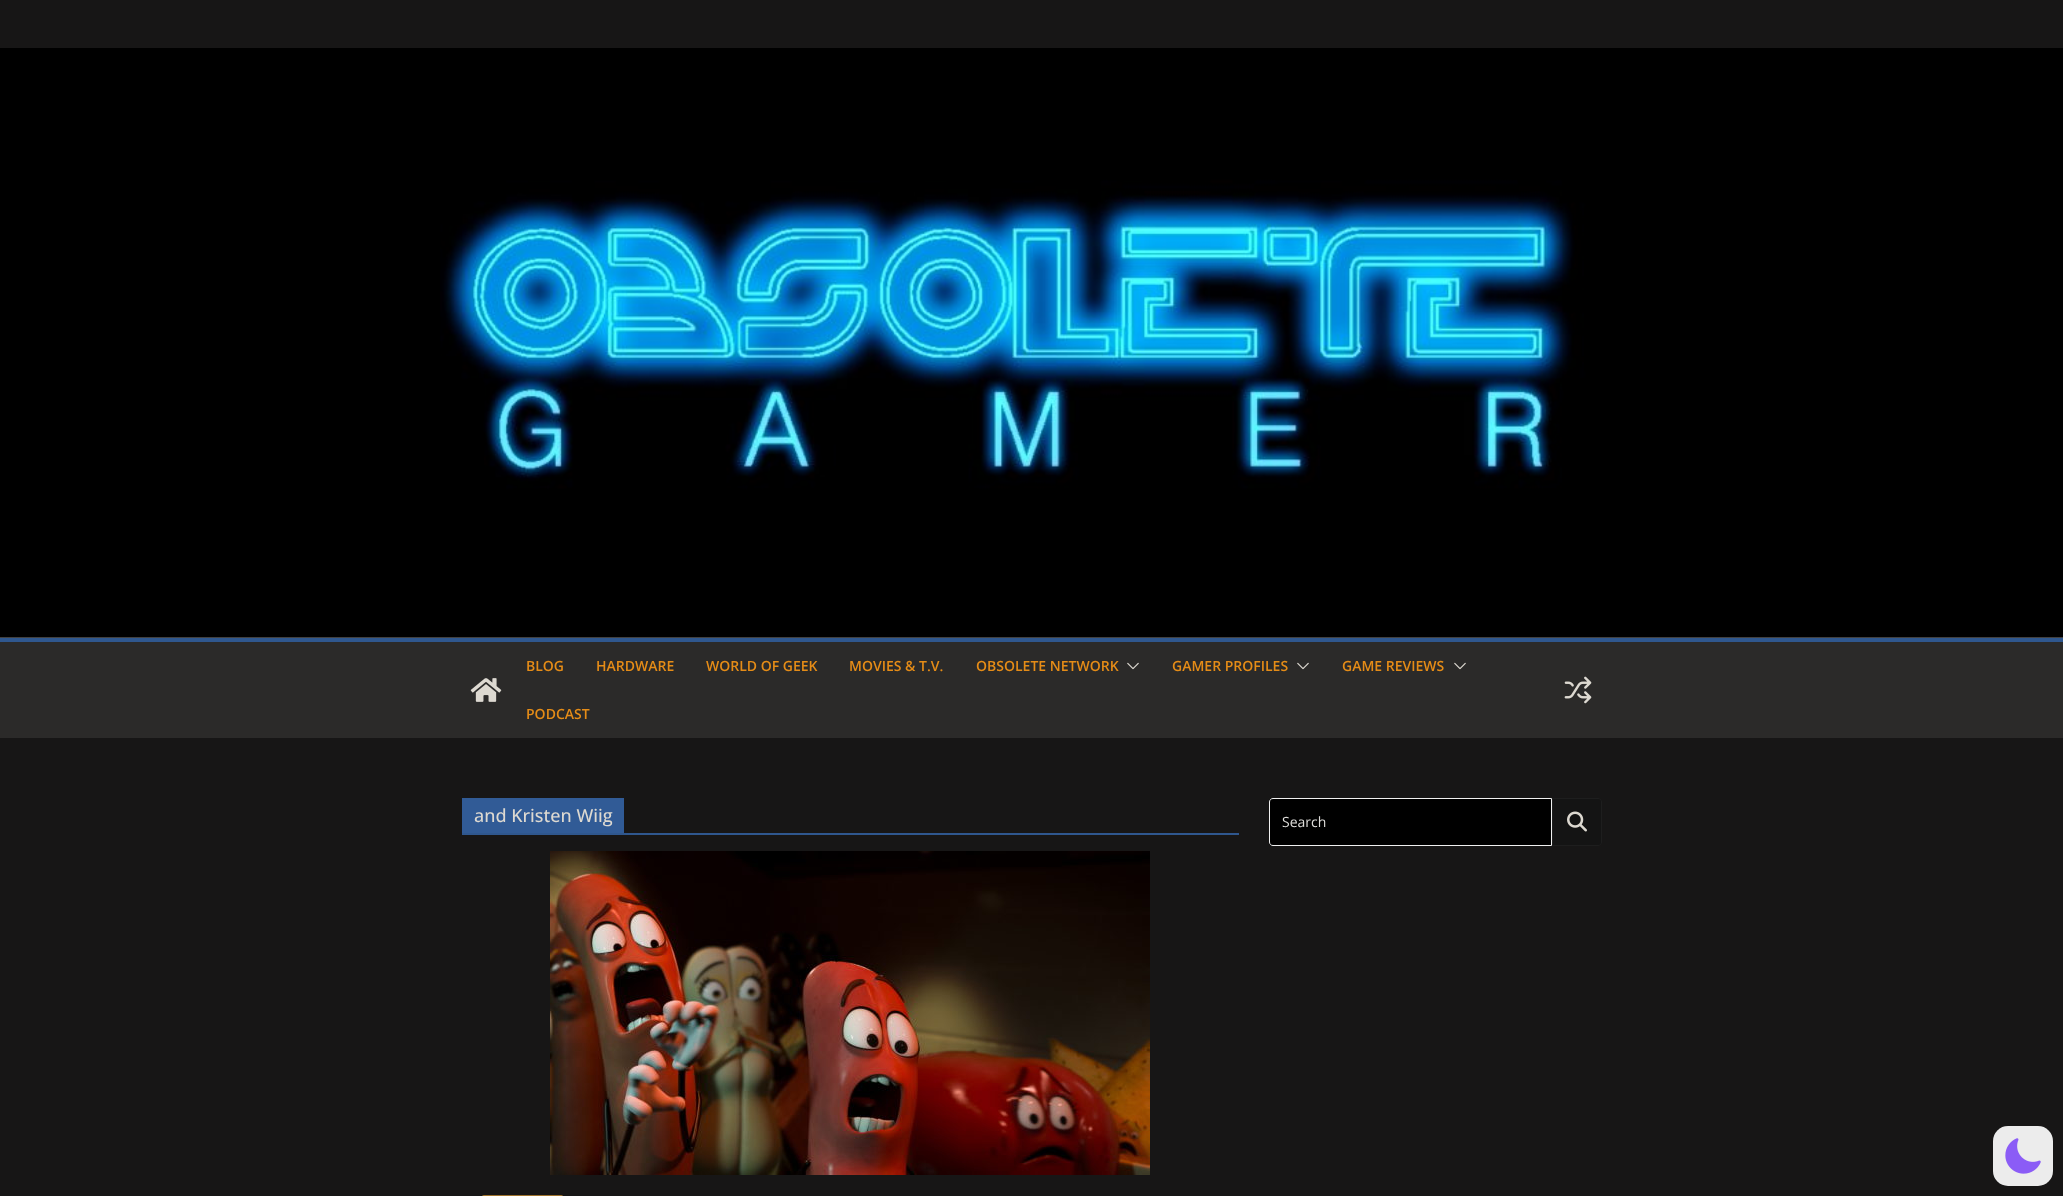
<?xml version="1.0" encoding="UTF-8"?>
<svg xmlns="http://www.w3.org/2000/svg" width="2063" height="1196">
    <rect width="100%" height="100%" fill="#171616"/>
    <image x="0" y="48" width="2063" height="589" href="img_01.png"/>
    <rect x="0" y="637" width="2063" height="1" fill="#424140"/>
    <rect x="0" y="642" width="2063" height="96" fill="#2B2A29"/>
    <rect x="0" y="638" width="2063" height="4" fill="#2F578E"/>
    <image x="470" y="678" width="32" height="24" href="img_02.png"/>
    <text x="526" y="671" font-family="Open Sans" font-size="14" font-weight="600" fill="#E58C17">BLOG</text>
    <text x="596" y="671" font-family="Open Sans" font-size="14" font-weight="600" fill="#E58C17">HARDWARE</text>
    <text x="706" y="671" font-family="Open Sans" font-size="14" font-weight="600" fill="#E58C17">WORLD OF GEEK</text>
    <text x="849" y="671" font-family="Open Sans" font-size="14" font-weight="600" fill="#E58C17">MOVIES &amp; T.V.</text>
    <text x="976" y="671" font-family="Open Sans" font-size="14" font-weight="600" fill="#E58C17">OBSOLETE NETWORK</text>
    <image x="1127" y="662" width="12" height="8" href="img_03.png"/>
    <text x="1172" y="671" font-family="Open Sans" font-size="14" font-weight="600" fill="#E58C17">GAMER PROFILES</text>
    <image x="1297" y="662" width="12" height="8" href="img_03.png"/>
    <text x="1342" y="671" font-family="Open Sans" font-size="14" font-weight="600" fill="#E58C17">GAME REVIEWS</text>
    <image x="1454" y="662" width="12" height="8" href="img_03.png"/>
    <text x="526" y="719" font-family="Open Sans" font-size="14" font-weight="600" fill="#E58C17">PODCAST</text>
    <image x="1564" y="676" width="28" height="28" href="img_04.png"/>
    <rect x="462" y="833" width="777" height="2" fill="#2F578E"/>
    <rect x="462" y="798" width="162" height="35" fill="#315B96"/>
    <text x="474" y="822" font-family="Open Sans" font-size="18" font-weight="500" fill="#DDD9D1">and Kristen Wiig</text>
    <image x="550" y="851" width="600" height="324" href="img_05.png"/>
    <rect x="482" y="1195" width="81" height="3" rx="2" fill="#9F722C"/>
    <path d="M 1273 798.5 H 1551.5 V 845.5 H 1273 C 1271 845.5 1269.5 844 1269.5 842 V 802 C 1269.5 800 1271 798.5 1273 798.5 Z" fill="#000000" stroke="#F0F0F0"/>
    <text x="1282" y="827" font-family="Open Sans" font-size="14" fill="#DFDEDB">Search</text>
    <path d="M 1552.5 798.5 H 1598 C 1600 798.5 1601.5 800 1601.5 802 V 842 C 1601.5 844 1600 845.5 1598 845.5 H 1552.5 Z" fill="#141414" stroke="#1E1E1E"/>
    <image x="1567" y="811" width="20" height="21" href="img_06.png"/>
    <rect x="1993" y="1126" width="60" height="60" rx="15" fill="#ECECEC"/>
    <image x="2005" y="1138" width="36" height="36" href="img_07.png"/>
</svg>
